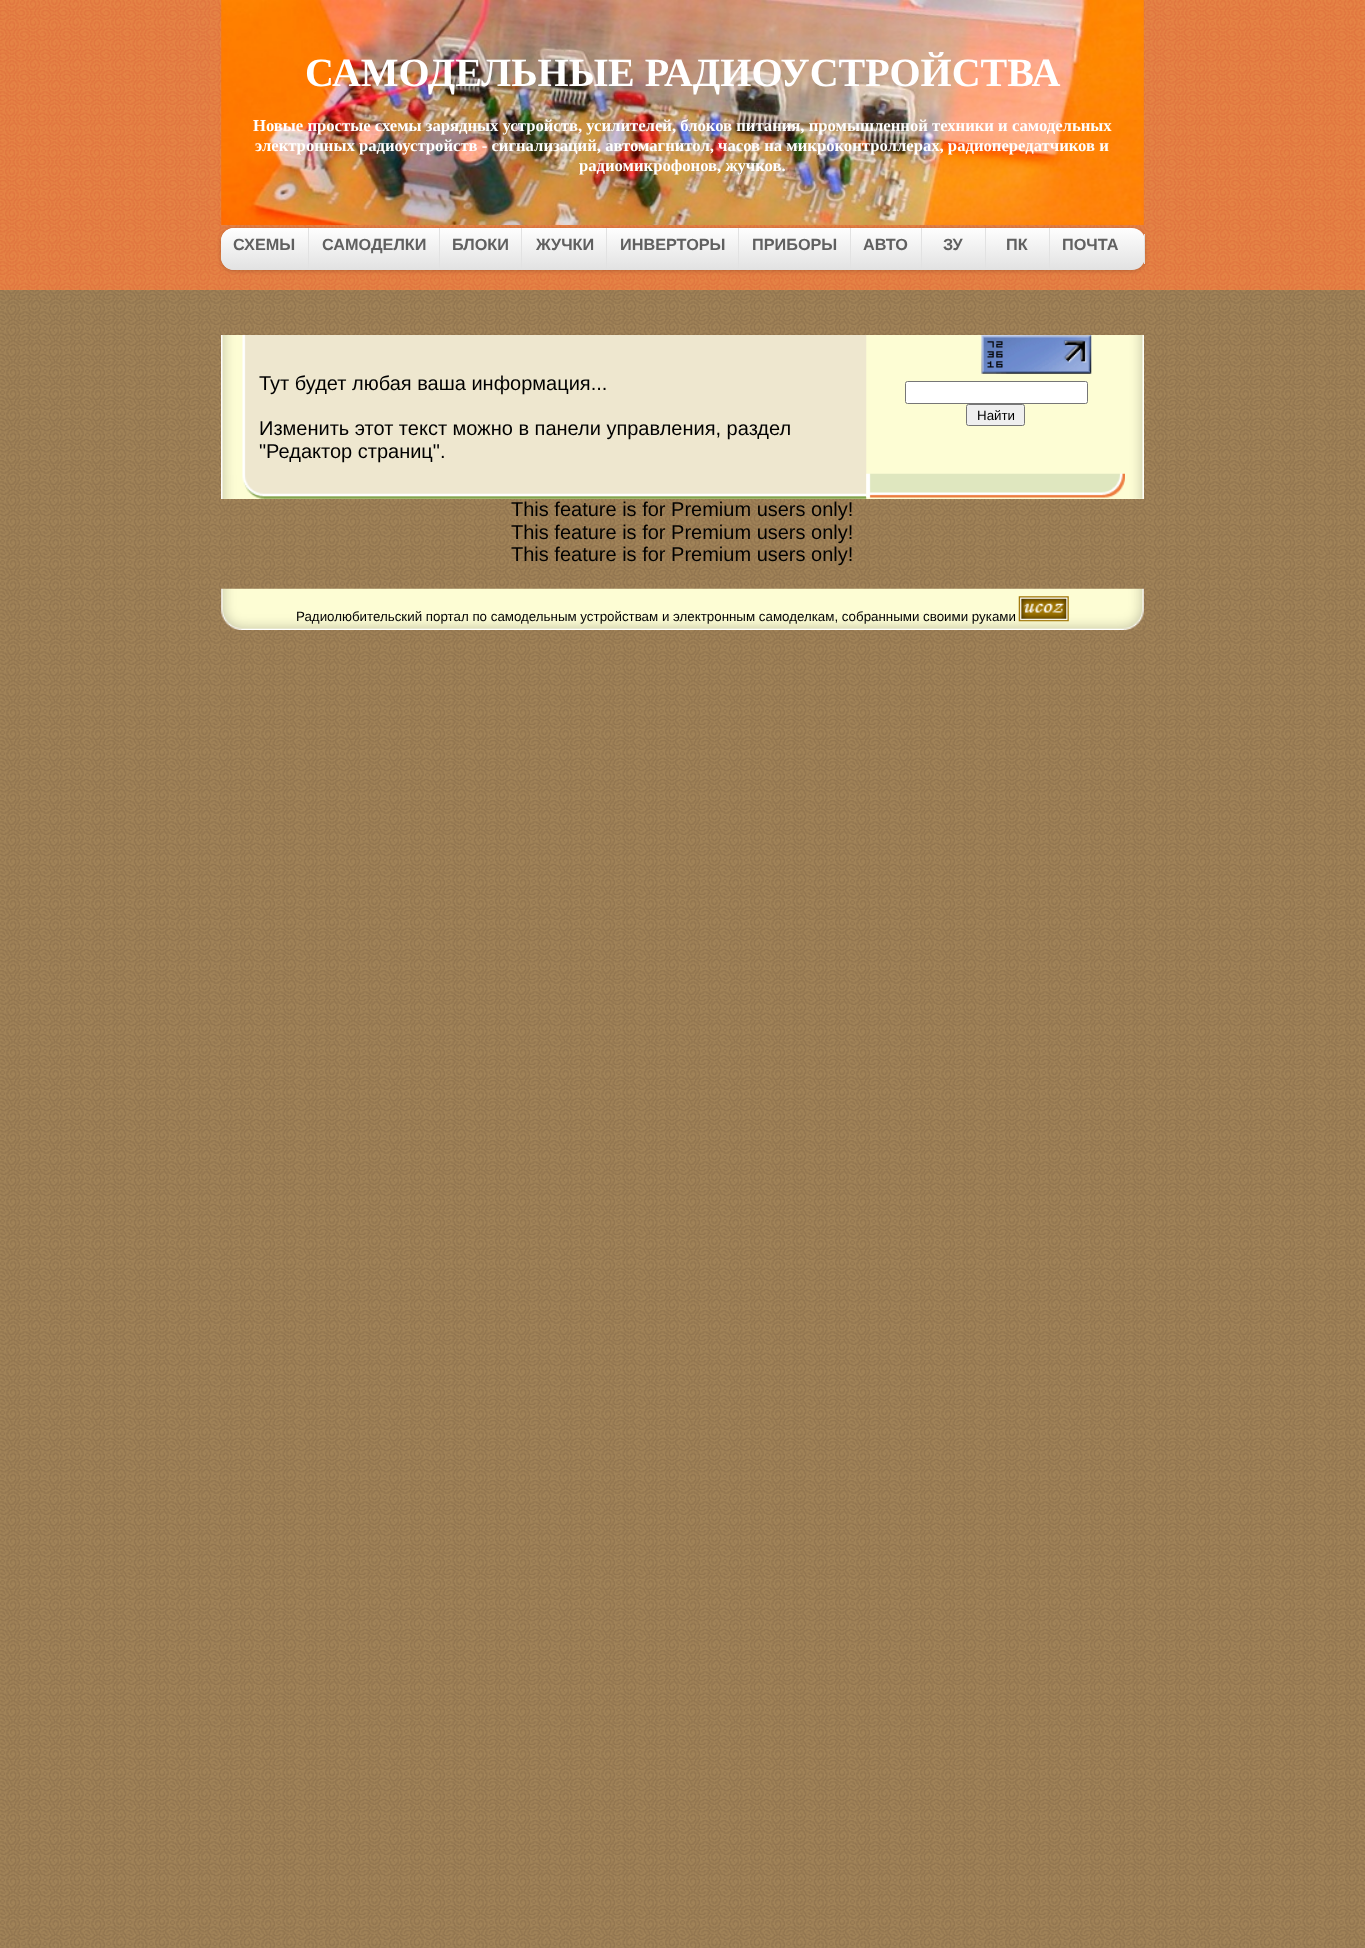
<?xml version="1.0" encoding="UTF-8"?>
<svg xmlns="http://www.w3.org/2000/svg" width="1365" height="1948">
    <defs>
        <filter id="blur1" x="-50%" y="-200%" width="200%" height="500%"><feGaussianBlur stdDeviation="2"/></filter>
        <linearGradient id="g1" gradientUnits="userSpaceOnUse" x1="683" y1="227" x2="683" y2="270"><stop offset="0" stop-color="#FFFFFF"/><stop offset="1" stop-color="#E2E2E2"/></linearGradient>
        <linearGradient id="g2" gradientUnits="userSpaceOnUse" x1="264" y1="228" x2="264" y2="270"><stop offset="0" stop-color="#FFFFFF"/><stop offset="1" stop-color="#E2E2E2"/></linearGradient>
    </defs>
    <rect width="100%" height="100%" fill="#FFFFFF"/>
    <image x="0" y="290" width="1365" height="1658" href="img_01.png"/>
    <image x="0" y="0" width="1365" height="290" href="img_02.png"/>
    <image x="221" y="0" width="923" height="225" href="img_03.png"/>
    <text x="305" y="86" font-family="Liberation Serif" font-size="40" font-weight="700" fill="#FFFFFF">САМОДЕЛЬНЫЕ РАДИОУСТРОЙСТВА</text>
    <text x="253" y="131" font-family="Liberation Serif" font-size="16.67" font-weight="700" fill="#FFFFFF">Новые простые схемы зарядных устройств, усилителей, блоков питания, промышленной техники и самодельных</text>
    <text x="255" y="151" font-family="Liberation Serif" font-size="16.67" font-weight="700" fill="#FFFFFF">электронных радиоустройств - сигнализаций, автомагнитол, часов на микроконтроллерах, радиопередатчиков и</text>
    <text x="579" y="171" font-family="Liberation Serif" font-size="16.67" font-weight="700" fill="#FFFFFF">радиомикрофонов, жучков.</text>
    <rect x="221" y="229" width="924" height="42" rx="13" fill="#000000" fill-opacity="0.2" filter="url(#blur1)"/>
    <rect x="221" y="228" width="924" height="42" rx="13" fill="url(#g1)"/>
    <rect x="1144" y="234" width="1" height="30" fill="#E2E2E2"/>
    <path d="M 234 228 H 309 V 270 H 234 C 227 270 221 264 221 257 V 241 C 221 234 227 228 234 228 Z" fill="url(#g2)"/>
    <rect x="308" y="228" width="1" height="42" fill="#E2E2E2"/>
    <text x="233" y="250" font-family="Liberation Sans" font-size="16.25" font-weight="700" fill="#606060">СХЕМЫ</text>
    <rect x="439" y="228" width="1" height="42" fill="#E2E2E2"/>
    <text x="322" y="250" font-family="Liberation Sans" font-size="16.25" font-weight="700" fill="#606060">САМОДЕЛКИ</text>
    <rect x="521" y="228" width="1" height="42" fill="#E2E2E2"/>
    <text x="452" y="250" font-family="Liberation Sans" font-size="16.25" font-weight="700" fill="#606060">БЛОКИ</text>
    <rect x="606" y="228" width="1" height="42" fill="#E2E2E2"/>
    <text x="536" y="250" font-family="Liberation Sans" font-size="16.25" font-weight="700" fill="#606060">ЖУЧКИ</text>
    <rect x="738" y="228" width="1" height="42" fill="#E2E2E2"/>
    <text x="620" y="250" font-family="Liberation Sans" font-size="16.25" font-weight="700" fill="#606060">ИНВЕРТОРЫ</text>
    <rect x="850" y="228" width="1" height="42" fill="#E2E2E2"/>
    <text x="752" y="250" font-family="Liberation Sans" font-size="16.25" font-weight="700" fill="#606060">ПРИБОРЫ</text>
    <rect x="921" y="228" width="1" height="42" fill="#E2E2E2"/>
    <text x="863" y="250" font-family="Liberation Sans" font-size="16.25" font-weight="700" fill="#606060">АВТО</text>
    <rect x="985" y="228" width="1" height="42" fill="#E2E2E2"/>
    <text x="943" y="250" font-family="Liberation Sans" font-size="16.25" font-weight="700" fill="#606060">ЗУ</text>
    <rect x="1049" y="228" width="1" height="42" fill="#E2E2E2"/>
    <text x="1006" y="250" font-family="Liberation Sans" font-size="16.25" font-weight="700" fill="#606060">ПК</text>
    <text x="1062" y="250" font-family="Liberation Sans" font-size="16.25" font-weight="700" fill="#606060">ПОЧТА</text>
    <rect x="221" y="335" width="923" height="164" fill="#FDFFDD"/>
    <image x="221" y="335" width="923" height="164" href="img_04.png"/>
    <image x="221" y="335" width="646" height="140" href="img_05.png"/>
    <text x="259" y="390" font-family="Liberation Sans" font-size="20" fill="#000000">Тут будет любая ваша информация...</text>
    <text font-family="Liberation Sans" font-size="20" fill="#000000">
        <tspan x="259" y="435">Изменить этот текст можно в панели управления, раздел</tspan>
        <tspan x="259" y="458">"Редактор страниц".</tspan>
    </text>
    <image x="221" y="475" width="646" height="24" href="img_06.png"/>
    <image x="981" y="335" width="111" height="39" href="img_07.png"/>
    <rect x="905.5" y="381.5" width="182" height="22" rx="2" fill="#FFFFFF" stroke="#767676"/>
    <rect x="966.5" y="404.5" width="58" height="21" rx="2" fill="#EFEFEF" stroke="#767676"/>
    <text x="977" y="420" font-family="Liberation Sans" font-size="13.33" fill="#000000">Найти</text>
    <image x="866" y="473" width="259" height="25" href="img_08.png"/>
    <text font-family="Liberation Sans" font-size="20" fill="#000000">
        <tspan x="511" y="516">This feature is for Premium users only!</tspan>
        <tspan x="511" y="539">This feature is for Premium users only!</tspan>
        <tspan x="511" y="561">This feature is for Premium users only!</tspan>
    </text>
    <image x="221" y="588" width="923" height="42" href="img_09.png"/>
    <text x="296" y="621" font-family="Liberation Sans" font-size="13.33" fill="#000000">Радиолюбительский портал по самодельным устройствам и электронным самоделкам, собранными своими руками</text>
    <image x="1018" y="596" width="51" height="26" href="img_10.png"/>
</svg>
